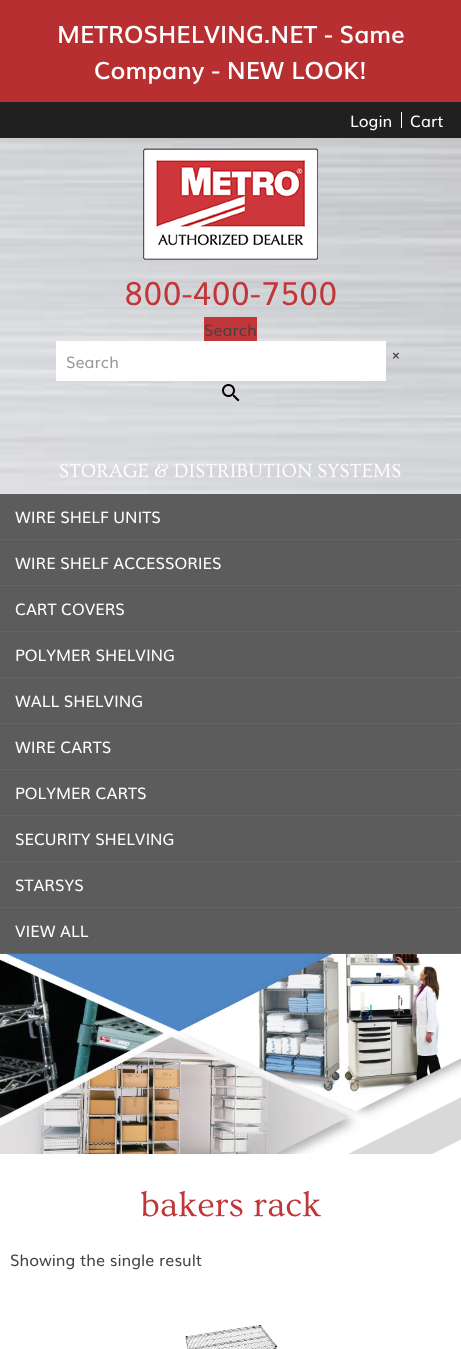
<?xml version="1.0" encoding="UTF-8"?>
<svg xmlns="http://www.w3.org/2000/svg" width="461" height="1349">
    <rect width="100%" height="100%" fill="#FFFFFF"/>
    <rect x="0" y="0" width="461" height="102" fill="#B82F32"/>
    <text x="57" y="43" font-family="Muli" font-size="24" font-weight="600" fill="#FFFFFF">METROSHELVING.NET - Same</text>
    <text x="94" y="79" font-family="Muli" font-size="24" font-weight="600" fill="#FFFFFF">Company - NEW LOOK!</text>
    <rect x="0" y="102" width="461" height="36" fill="#202020"/>
    <text x="350" y="127" font-family="Muli" font-size="16" fill="#FFFFFF">Login</text>
    <rect x="401" y="112" width="1" height="16" fill="#FFFFFF"/>
    <text x="410" y="127" font-family="Muli" font-size="16" fill="#FFFFFF">Cart</text>
    <image x="0" y="138" width="461" height="356" href="img_01.png"/>
    <image x="143" y="148" width="175" height="112" href="img_02.png"/>
    <text x="124" y="305" font-family="Muli" font-size="32" fill="#C03639">800-400-7500</text>
    <rect x="204" y="317" width="53" height="24" fill="#C03639"/>
    <text x="204" y="336" font-family="Muli" font-size="16" fill="#444444">Search</text>
    <rect x="56" y="341" width="330" height="40" fill="#FFFFFF"/>
    <text x="66" y="368" font-family="Muli" font-size="16" fill="#9A9A9A">Search</text>
    <text x="391" y="360" font-family="Muli" font-size="16" fill="#444444">×</text>
    <image x="222" y="384" width="18" height="18" href="img_03.png"/>
    <text x="59" y="477" font-family="Ovo" font-size="20" fill="#FFFFFF">STORAGE &amp; DISTRIBUTION SYSTEMS</text>
    <rect x="0" y="494" width="461" height="460" fill="#5C5C5C"/>
    <path d="M 0 539.5 H 461" fill="none" stroke="#6C6C6C" stroke-dasharray="1 1"/>
    <text x="15" y="523" font-family="Muli" font-size="16" fill="#FFFFFF">WIRE SHELF UNITS</text>
    <path d="M 0 585.5 H 461" fill="none" stroke="#6C6C6C" stroke-dasharray="1 1"/>
    <text x="15" y="569" font-family="Muli" font-size="16" fill="#FFFFFF">WIRE SHELF ACCESSORIES</text>
    <path d="M 0 631.5 H 461" fill="none" stroke="#6C6C6C" stroke-dasharray="1 1"/>
    <text x="15" y="615" font-family="Muli" font-size="16" fill="#FFFFFF">CART COVERS</text>
    <path d="M 0 677.5 H 461" fill="none" stroke="#6C6C6C" stroke-dasharray="1 1"/>
    <text x="15" y="661" font-family="Muli" font-size="16" fill="#FFFFFF">POLYMER SHELVING</text>
    <path d="M 0 723.5 H 461" fill="none" stroke="#6C6C6C" stroke-dasharray="1 1"/>
    <text x="15" y="707" font-family="Muli" font-size="16" fill="#FFFFFF">WALL SHELVING</text>
    <path d="M 0 769.5 H 461" fill="none" stroke="#6C6C6C" stroke-dasharray="1 1"/>
    <text x="15" y="753" font-family="Muli" font-size="16" fill="#FFFFFF">WIRE CARTS</text>
    <path d="M 0 815.5 H 461" fill="none" stroke="#6C6C6C" stroke-dasharray="1 1"/>
    <text x="15" y="799" font-family="Muli" font-size="16" fill="#FFFFFF">POLYMER CARTS</text>
    <path d="M 0 861.5 H 461" fill="none" stroke="#6C6C6C" stroke-dasharray="1 1"/>
    <text x="15" y="845" font-family="Muli" font-size="16" fill="#FFFFFF">SECURITY SHELVING</text>
    <path d="M 0 907.5 H 461" fill="none" stroke="#6C6C6C" stroke-dasharray="1 1"/>
    <text x="15" y="891" font-family="Muli" font-size="16" fill="#FFFFFF">STARSYS</text>
    <path d="M 0 953.5 H 461" fill="none" stroke="#6C6C6C" stroke-dasharray="1 1"/>
    <text x="15" y="937" font-family="Muli" font-size="16" fill="#FFFFFF">VIEW ALL</text>
    <image x="0" y="954" width="461" height="200" href="img_04.png"/>
    <text x="140" y="1216" font-family="Ovo" font-size="36" fill="#C03639">bakers rack</text>
    <text x="10" y="1266" font-family="Muli" font-size="16" fill="#444444">Showing the single result</text>
    <image x="185" y="1324" width="93" height="25" href="img_05.png"/>
</svg>
